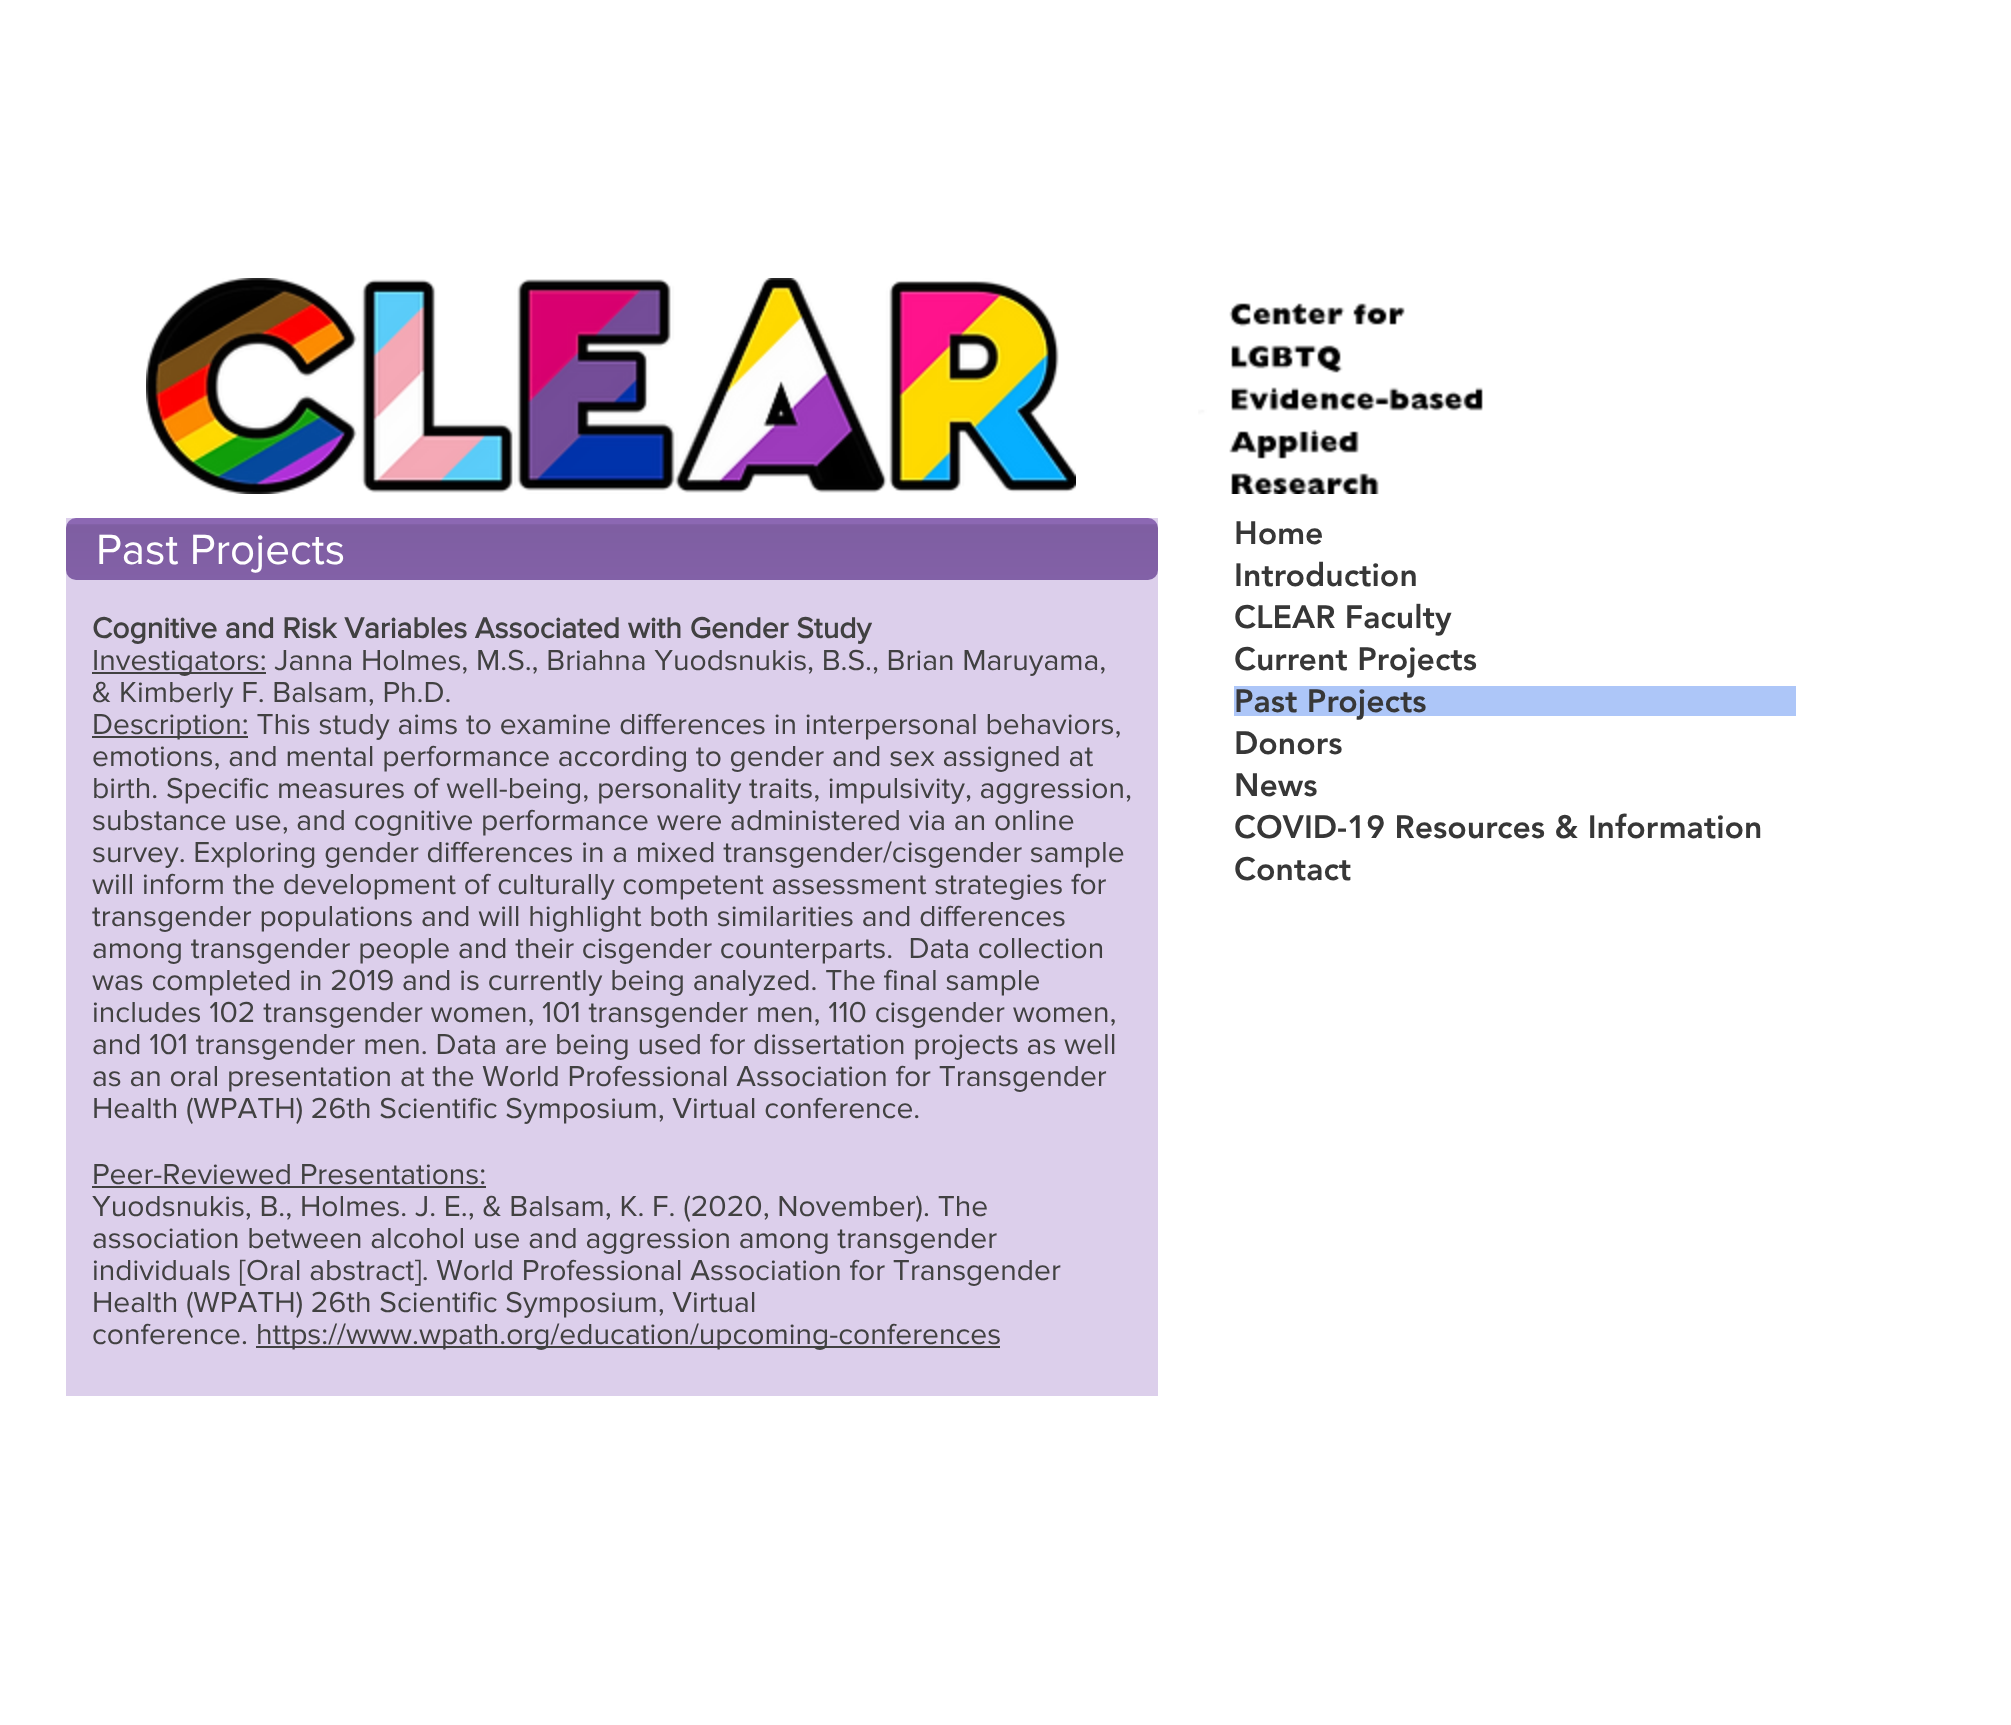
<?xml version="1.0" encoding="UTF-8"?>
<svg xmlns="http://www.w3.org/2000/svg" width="2011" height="1725">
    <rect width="100%" height="100%" fill="#FFFFFF"/>
    <image x="146" y="278" width="930" height="216" href="img_01.png"/>
    <image x="1198" y="303" width="285" height="191" href="img_02.png"/>
    <rect x="66" y="518" width="1092" height="878" fill="#DCCFEB"/>
    <rect x="66" y="518" width="1092" height="62" rx="10" fill="#8C68B3"/>
    <image x="66" y="524" width="1092" height="56" href="img_03.png"/>
    <text x="96" y="564" font-family="'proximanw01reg'" font-size="44" fill="#FFFFFF">Past Projects</text>
    <text x="92" y="638" font-family="'proximanw01reg'" font-size="30" font-weight="700" fill="#414141">Cognitive and Risk Variables Associated with Gender Study</text>
    <rect x="92" y="672" width="174" height="2" fill="#414141"/>
    <text font-family="'proximanw01reg'" font-size="30" fill="#414141">
        <tspan x="92" y="670">Investigators: Janna Holmes, M.S., Briahna Yuodsnukis, B.S., Brian Maruyama,</tspan>
        <tspan x="92" y="702">&amp; Kimberly F. Balsam, Ph.D.</tspan>
    </text>
    <rect x="92" y="736" width="156" height="2" fill="#414141"/>
    <text font-family="'proximanw01reg'" font-size="30" fill="#414141" xml:space="preserve"><tspan x="92" y="734">Description: This study aims to examine differences in interpersonal behaviors,</tspan><tspan x="92" y="766">emotions, and mental performance according to gender and sex assigned at</tspan><tspan x="92" y="798">birth. Specific measures of well-being, personality traits, impulsivity, aggression,</tspan><tspan x="92" y="830">substance use, and cognitive performance were administered via an online</tspan><tspan x="92" y="862">survey. Exploring gender differences in a mixed transgender/cisgender sample</tspan><tspan x="92" y="894">will inform the development of culturally competent assessment strategies for</tspan><tspan x="92" y="926">transgender populations and will highlight both similarities and differences</tspan><tspan x="92" y="958">among transgender people and their cisgender counterparts.  Data collection</tspan><tspan x="92" y="990">was completed in 2019 and is currently being analyzed. The final sample</tspan><tspan x="92" y="1022">includes 102 transgender women, 101 transgender men, 110 cisgender women,</tspan><tspan x="92" y="1054">and 101 transgender men. Data are being used for dissertation projects as well</tspan><tspan x="92" y="1086">as an oral presentation at the World Professional Association for Transgender</tspan><tspan x="92" y="1118">Health (WPATH) 26th Scientific Symposium, Virtual conference.</tspan></text>
    <text x="92" y="1184" font-family="'proximanw01reg'" font-size="30" fill="#414141">Peer-Reviewed Presentations:</text>
    <rect x="92" y="1186" width="394" height="2" fill="#414141"/>
    <text font-family="'proximanw01reg'" font-size="30" fill="#414141">
        <tspan x="92" y="1216">Yuodsnukis, B., Holmes. J. E., &amp; Balsam, K. F. (2020, November). The</tspan>
        <tspan x="92" y="1248">association between alcohol use and aggression among transgender</tspan>
        <tspan x="92" y="1280">individuals [Oral abstract]. World Professional Association for Transgender</tspan>
        <tspan x="92" y="1312">Health (WPATH) 26th Scientific Symposium, Virtual</tspan>
        <tspan x="92" y="1344">conference.</tspan>
    </text>
    <rect x="256" y="1346" width="744" height="2" fill="#414141"/>
    <text x="256" y="1344" font-family="'proximanw01reg'" font-size="30" fill="#414141">https://www.wpath.org/education/upcoming-conferences</text>
    <text font-family="'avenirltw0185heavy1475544'" font-size="32" font-weight="900" fill="#373737">
        <tspan x="1234" y="544">Home</tspan>
        <tspan x="1234" y="586">Introduction</tspan>
        <tspan x="1234" y="628">CLEAR Faculty</tspan>
        <tspan x="1234" y="670">Current Projects</tspan>
    </text>
    <rect x="1234" y="686" width="562" height="30" fill="#ADC6F8"/>
    <text font-family="'avenirltw0185heavy1475544'" font-size="32" font-weight="900" fill="#373737">
        <tspan x="1234" y="712">Past Projects</tspan>
        <tspan x="1234" y="754">Donors</tspan>
        <tspan x="1234" y="796">News</tspan>
        <tspan x="1234" y="838">COVID-19 Resources &amp; Information</tspan>
        <tspan x="1234" y="880">Contact</tspan>
    </text>
</svg>
